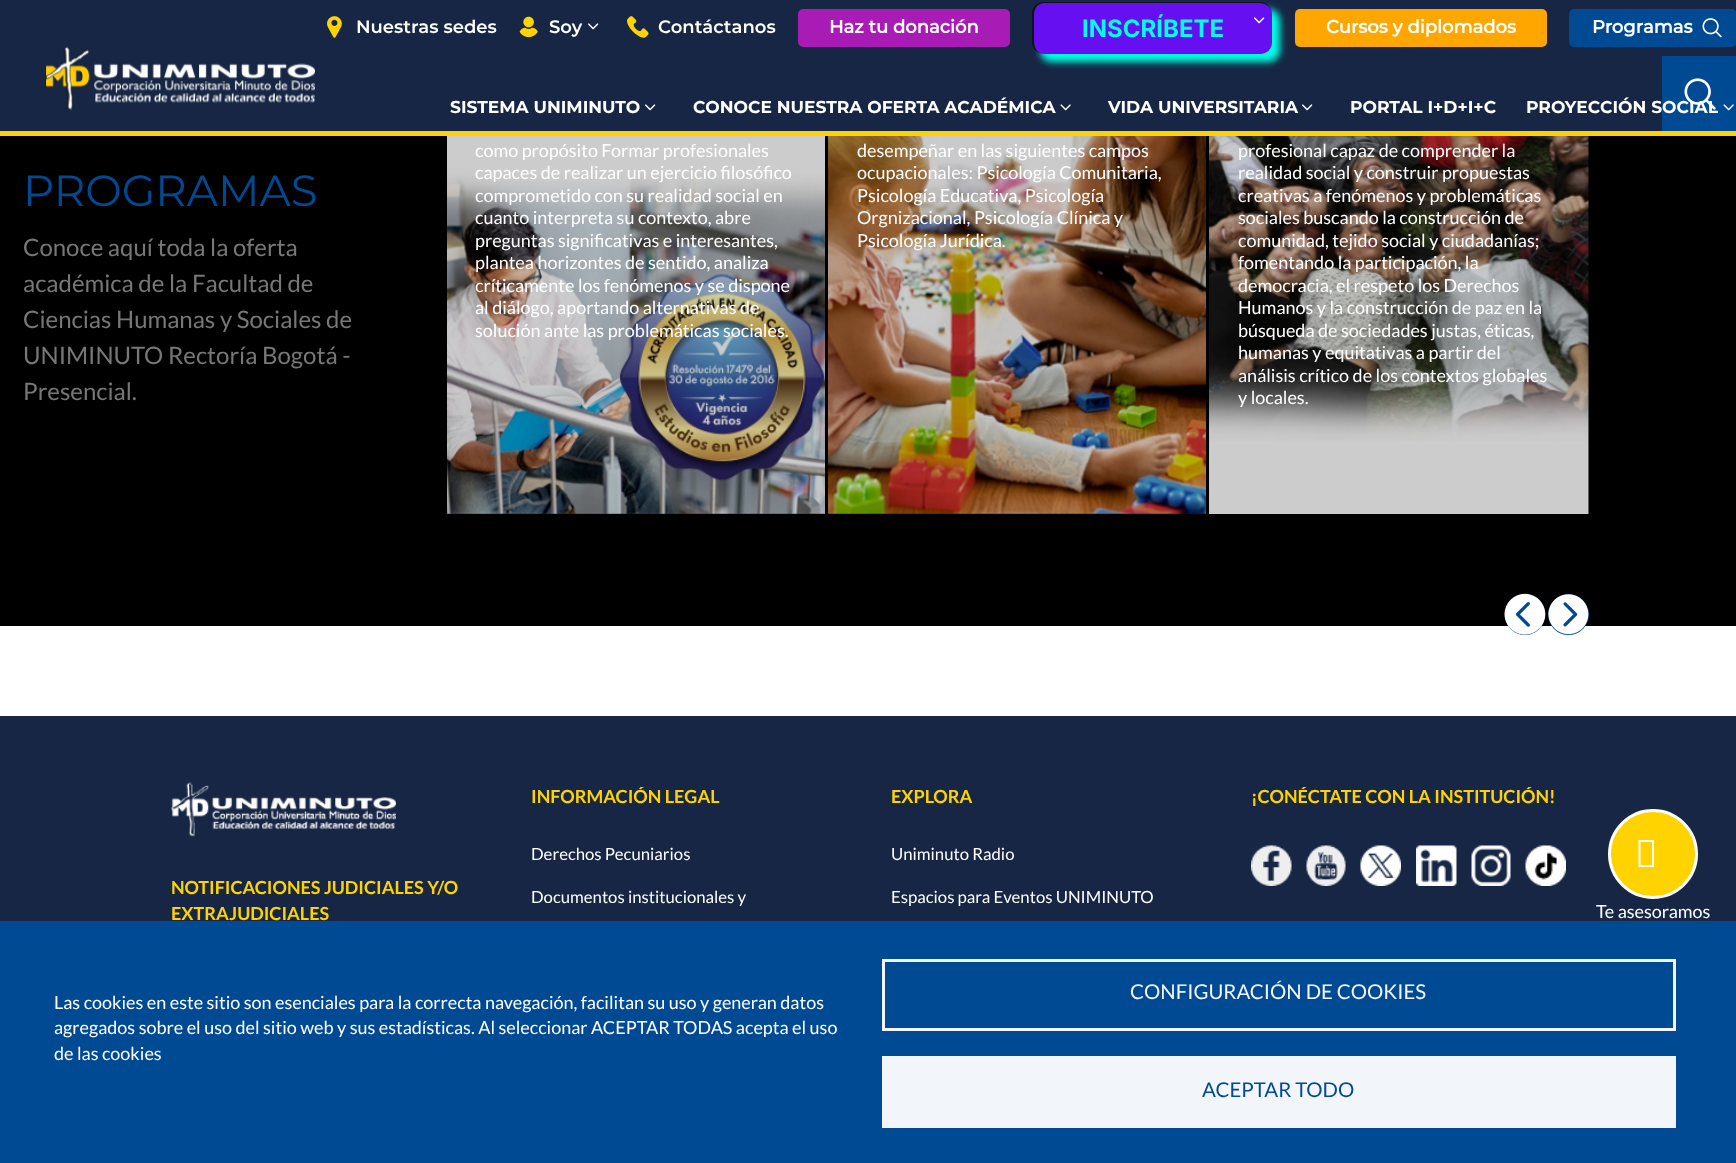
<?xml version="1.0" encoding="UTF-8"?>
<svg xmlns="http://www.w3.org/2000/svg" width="1736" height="1163">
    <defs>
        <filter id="blur1" x="-50%" y="-200%" width="200%" height="500%"><feGaussianBlur stdDeviation="3.5"/></filter>
    </defs>
    <rect width="100%" height="100%" fill="#FFFFFF"/>
    <rect x="0" y="0" width="1736" height="131" fill="#162644"/>
    <rect x="0" y="131" width="1736" height="5" fill="#FFD300"/>
    <image x="45" y="46" width="270" height="65" href="img_01.png"/>
    <image x="327" y="16" width="15" height="22" href="img_02.png"/>
    <text x="356" y="33" font-family="Montserrat" font-size="18" font-weight="600" fill="#FFFFFF">Nuestras sedes</text>
    <image x="519" y="16" width="19" height="22" href="img_03.png"/>
    <text x="549" y="33" font-family="Montserrat" font-size="18" font-weight="600" fill="#FFFFFF">Soy</text>
    <image x="588" y="23" width="11" height="7" href="img_04.png"/>
    <image x="627" y="16" width="22" height="22" href="img_05.png"/>
    <text x="658" y="33" font-family="Montserrat" font-size="18" font-weight="600" fill="#FFFFFF">Contáctanos</text>
    <rect x="798" y="9" width="212" height="38" rx="5" fill="#A81BB4"/>
    <text x="829" y="33" font-family="'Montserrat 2'" font-size="18" font-weight="700" fill="#FFFFFF">Haz tu donación</text>
    <rect x="1040" y="9" width="240" height="53" rx="12" fill="#00FFE5" filter="url(#blur1)"/>
    <path d="M 1044 3 H 1260 C 1267 3 1272 8 1272 14 V 42 C 1272 49 1267 54 1260 54 H 1044 C 1038 54 1034 49 1034 42 V 14 C 1034 8 1038 3 1044 3 Z" fill="#6610F2"/>
    <path d="M 1044 2 H 1260 C 1267 2 1272 7 1272 14 V 42 C 1272 49 1267 54 1260 54 H 1044 C 1037 54 1032 49 1032 42 V 14 C 1032 7 1037 2 1044 2 Z M 1044 3 H 1260 C 1267 3 1272 8 1272 14 V 42 C 1272 49 1267 54 1260 54 H 1044 C 1038 54 1034 49 1034 42 V 14 C 1034 8 1038 3 1044 3 Z" fill="#111111" fill-rule="evenodd"/>
    <text x="1082" y="37" font-family="Inter" font-size="24" font-weight="700" fill="#00FFE5">INSCRÍBETE</text>
    <image x="1254" y="17" width="11" height="7" href="img_06.png"/>
    <rect x="1295" y="9" width="252" height="38" rx="5" fill="#FFA700"/>
    <text x="1326" y="33" font-family="'Montserrat 2'" font-size="18" font-weight="700" fill="#FFFFFF">Cursos y diplomados</text>
    <rect x="1569" y="9" width="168" height="38" rx="5" fill="#004A93"/>
    <text x="1592" y="33" font-family="'Montserrat 2'" font-size="18" font-weight="700" fill="#FFFFFF">Programas</text>
    <image x="1702" y="18" width="20" height="20" href="img_07.png"/>
    <text x="450" y="113" font-family="Montserrat" font-size="17.1" font-weight="700" fill="#FFFFFF">SISTEMA UNIMINUTO</text>
    <image x="645" y="104" width="11" height="7" href="img_04.png"/>
    <text x="693" y="113" font-family="Montserrat" font-size="17.1" font-weight="700" fill="#FFFFFF">CONOCE NUESTRA OFERTA ACADÉMICA</text>
    <image x="1060" y="104" width="11" height="7" href="img_08.png"/>
    <text x="1108" y="113" font-family="Montserrat" font-size="17.1" font-weight="700" fill="#FFFFFF">VIDA UNIVERSITARIA</text>
    <image x="1302" y="104" width="11" height="7" href="img_04.png"/>
    <text x="1350" y="113" font-family="Montserrat" font-size="17.1" font-weight="700" fill="#FFFFFF">PORTAL I+D+I+C</text>
    <rect x="1662" y="56" width="74" height="75" fill="#004A93"/>
    <image x="1684" y="78" width="32" height="32" href="img_10.png"/>
    <text x="1526" y="113" font-family="Montserrat" font-size="17.1" font-weight="700" fill="#FFFFFF">PROYECCIÓN SOCIAL</text>
    <image x="1723" y="104" width="11" height="7" href="img_09.png"/>
    <rect x="0" y="136" width="1736" height="490" fill="#000000"/>
    <text x="23" y="206" font-family="Montserrat" font-size="43.5" fill="#004A93">PROGRAMAS</text>
    <text font-family="Lato" font-size="24" fill="#777777">
        <tspan x="23" y="256">Conoce aquí toda la oferta</tspan>
        <tspan x="23" y="292">académica de la Facultad de</tspan>
        <tspan x="23" y="328">Ciencias Humanas y Sociales de</tspan>
        <tspan x="23" y="364">UNIMINUTO Rectoría Bogotá -</tspan>
        <tspan x="23" y="400">Presencial.</tspan>
    </text>
    <image x="447" y="136" width="378" height="378" href="img_11.png"/>
    <text font-family="Lato" font-size="18" fill="#FFFFFF">
        <tspan x="475" y="157">como propósito Formar profesionales</tspan>
        <tspan x="475" y="179">capaces de realizar un ejercicio filosófico</tspan>
        <tspan x="475" y="202">comprometido con su realidad social en</tspan>
        <tspan x="475" y="224">cuanto interpreta su contexto, abre</tspan>
        <tspan x="475" y="247">preguntas significativas e interesantes,</tspan>
        <tspan x="475" y="269">plantea horizontes de sentido, analiza</tspan>
        <tspan x="475" y="292">críticamente los fenómenos y se dispone</tspan>
        <tspan x="475" y="314">al diálogo, aportando alternativas de</tspan>
        <tspan x="475" y="337">solución ante las problemáticas sociales.</tspan>
    </text>
    <image x="828" y="136" width="378" height="378" href="img_12.png"/>
    <text font-family="Lato" font-size="18" fill="#FFFFFF">
        <tspan x="857" y="157">desempeñar en las siguientes campos</tspan>
        <tspan x="857" y="179">ocupacionales: Psicología Comunitaria,</tspan>
        <tspan x="857" y="202">Psicología Educativa, Psicología</tspan>
        <tspan x="857" y="224">Orgnizacional, Psicología Clínica y</tspan>
        <tspan x="857" y="247">Psicología Jurídica.</tspan>
    </text>
    <image x="1209" y="136" width="380" height="378" href="img_13.png"/>
    <text font-family="Lato" font-size="18" fill="#FFFFFF">
        <tspan x="1238" y="157">profesional capaz de comprender la</tspan>
        <tspan x="1238" y="179">realidad social y construir propuestas</tspan>
        <tspan x="1238" y="202">creativas a fenómenos y problemáticas</tspan>
        <tspan x="1238" y="224">sociales buscando la construcción de</tspan>
        <tspan x="1238" y="247">comunidad, tejido social y ciudadanías;</tspan>
        <tspan x="1238" y="269">fomentando la participación, la</tspan>
        <tspan x="1238" y="292">democracia, el respeto los Derechos</tspan>
        <tspan x="1238" y="314">Humanos y la construcción de paz en la</tspan>
        <tspan x="1238" y="337">búsqueda de sociedades justas, éticas,</tspan>
        <tspan x="1238" y="359">humanas y equitativas a partir del</tspan>
        <tspan x="1238" y="382">análisis crítico de los contextos globales</tspan>
        <tspan x="1238" y="404">y locales.</tspan>
    </text>
    <rect x="1505" y="594" width="40" height="41" rx="20" fill="#004A93"/>
    <image x="1504" y="593" width="42" height="42" href="img_14.png"/>
    <circle cx="1568.5" cy="614.5" r="20.5" fill="#004A93"/>
    <image x="1548" y="594" width="41" height="41" href="img_15.png"/>
    <rect x="0" y="716" width="1736" height="205" fill="#162644"/>
    <circle cx="1653" cy="854" r="43.5" fill="#FFD300" stroke="#FFFFFF" stroke-width="3"/>
    <path d="M 1638.5 867 V 840 H 1654 V 867 Z M 1640.5 865 H 1652 V 842 H 1640.5 Z" fill="#FFFFFF"/>
    <text x="1596" y="918" font-family="Lato" font-size="18" fill="#FFFFFF">Te asesoramos</text>
    <rect x="0" y="921" width="1736" height="242" fill="#004A93"/>
    <text font-family="Lato" font-size="18" fill="#FFFFFF">
        <tspan x="54" y="1009">Las cookies en este sitio son esenciales para la correcta navegación, facilitan su uso y generan datos</tspan>
        <tspan x="54" y="1034">agregados sobre el uso del sitio web y sus estadísticas. Al seleccionar ACEPTAR TODAS acepta el uso</tspan>
        <tspan x="54" y="1060">de las cookies</tspan>
    </text>
    <rect x="883.5" y="960.5" width="791" height="69" fill="none" stroke="#F2F6FA" stroke-width="3"/>
    <text x="1130" y="999" font-family="Lato" font-size="20.4" fill="#F2F6FA">CONFIGURACIÓN DE COOKIES</text>
    <rect x="882" y="1056" width="794" height="72" fill="#F2F6FA"/>
    <text x="1202" y="1097" font-family="Lato" font-size="20.4" fill="#004A93">ACEPTAR TODO</text>
    <image x="171" y="782" width="225" height="55" href="img_16.png"/>
    <text font-family="Lato" font-size="18" font-weight="700" fill="#FFD300">
        <tspan x="171" y="894">NOTIFICACIONES JUDICIALES Y/O</tspan>
        <tspan x="171" y="920">EXTRAJUDICIALES</tspan>
    </text>
    <text x="531" y="803" font-family="Lato" font-size="18" font-weight="700" fill="#FFD300">INFORMACIÓN LEGAL</text>
    <text x="531" y="860" font-family="Lato" font-size="16.75" fill="#FFFFFF">Derechos Pecuniarios</text>
    <text x="531" y="903" font-family="Lato" font-size="16.75" fill="#FFFFFF">Documentos institucionales y</text>
    <text x="891" y="803" font-family="Lato" font-size="18" font-weight="700" fill="#FFD300">EXPLORA</text>
    <text x="891" y="860" font-family="Lato" font-size="16.75" fill="#FFFFFF">Uniminuto Radio</text>
    <text x="891" y="903" font-family="Lato" font-size="16.75" fill="#FFFFFF">Espacios para Eventos UNIMINUTO</text>
    <text x="1251" y="803" font-family="Lato" font-size="18" font-weight="700" fill="#FFD300">¡CONÉCTATE CON LA INSTITUCIÓN!</text>
    <image x="1251" y="845" width="41" height="41" href="img_17.png"/>
    <image x="1306" y="845" width="40" height="41" href="img_18.png"/>
    <image x="1360" y="845" width="41" height="41" href="img_19.png"/>
    <image x="1416" y="845" width="41" height="41" href="img_20.png"/>
    <image x="1471" y="845" width="40" height="41" href="img_21.png"/>
    <image x="1525" y="845" width="41" height="41" href="img_22.png"/>
</svg>
